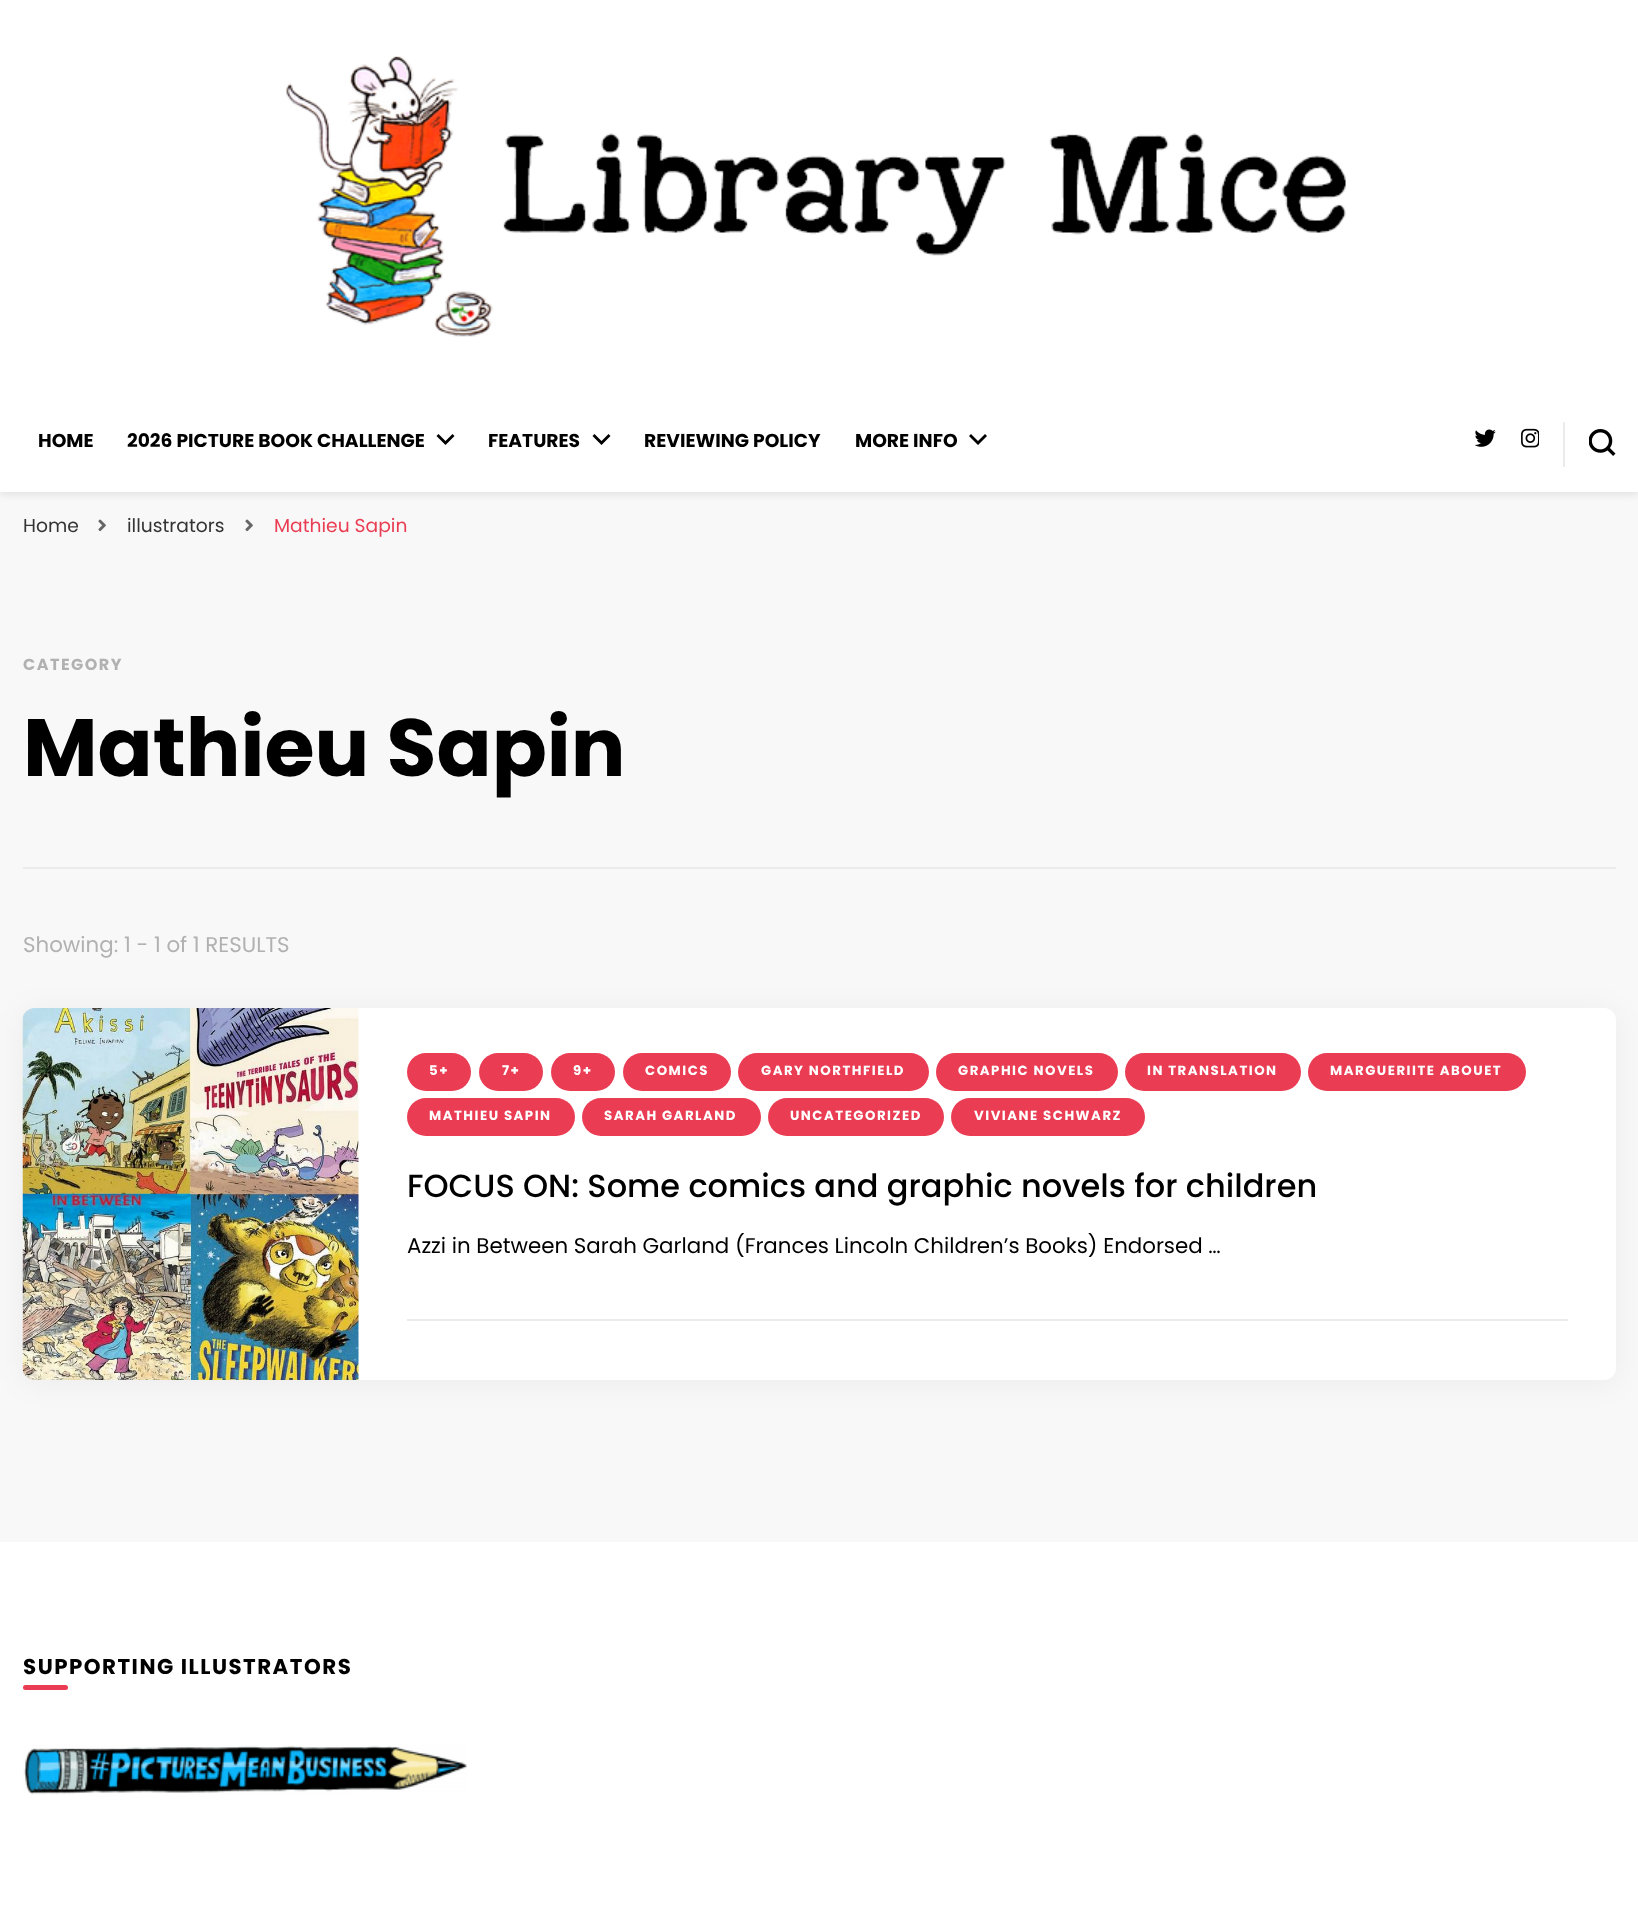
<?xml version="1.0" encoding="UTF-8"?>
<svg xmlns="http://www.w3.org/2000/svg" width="1638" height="1919">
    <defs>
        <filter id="blur1" x="-50%" y="-200%" width="200%" height="500%"><feGaussianBlur stdDeviation="4"/></filter>
        <filter id="blur2" x="-50%" y="-200%" width="200%" height="500%"><feGaussianBlur stdDeviation="15"/></filter>
    </defs>
    <rect width="100%" height="100%" fill="#F8F8F8"/>
    <rect x="0" y="2" width="1638" height="492" fill="#000000" fill-opacity="0.1" filter="url(#blur1)"/>
    <rect x="0" y="0" width="1638" height="492" fill="#FFFFFF"/>
    <image x="286" y="55" width="1060" height="282" href="img_01.png"/>
    <text x="38" y="447" font-family="Poppins" font-size="18.7" font-weight="700" fill="#000000">HOME</text>
    <text x="127" y="447" font-family="Poppins" font-size="18.7" font-weight="700" fill="#000000">2026 PICTURE BOOK CHALLENGE</text>
    <path d="M 452.5 434 L 454.5 436 L 445.5 445 L 436.5 436 L 438.5 434 L 445.5 441 Z" fill="#000000"/>
    <text x="488" y="447" font-family="Poppins" font-size="18.7" font-weight="700" fill="#000000">FEATURES</text>
    <path d="M 608.5 434 L 610.5 436 L 601.5 445 L 592.5 436 L 594.5 434 L 601.5 441 Z" fill="#000000"/>
    <text x="644" y="447" font-family="Poppins" font-size="18.7" font-weight="700" fill="#000000">REVIEWING POLICY</text>
    <text x="855" y="447" font-family="Poppins" font-size="18.7" font-weight="700" fill="#000000">MORE INFO</text>
    <path d="M 985 434 L 987 436 L 978 445 L 969 436 L 971 434 L 978 441 Z" fill="#000000"/>
    <image x="1475" y="429" width="21" height="18" href="img_02.png"/>
    <image x="1521" y="428" width="18" height="20" href="img_03.png"/>
    <rect x="1563" y="422" width="2" height="45" fill="#EBEBEB"/>
    <image x="1589" y="429" width="27" height="27" href="img_04.png"/>
    <text x="23" y="532" font-family="Poppins" font-size="18.7" fill="#333333">Home</text>
    <image x="98" y="519" width="8" height="13" href="img_05.png"/>
    <text x="127" y="532" font-family="Poppins" font-size="18.7" fill="#333333">illustrators</text>
    <image x="245" y="519" width="8" height="13" href="img_05.png"/>
    <text x="274" y="532" font-family="Poppins" font-size="18.7" fill="#EA3C53">Mathieu Sapin</text>
    <rect x="23" y="867" width="1593" height="2" fill="#EBEBEB"/>
    <text x="23" y="670" font-family="Poppins" font-size="16" font-weight="700" letter-spacing="1.5" fill="#B1B1B2">CATEGORY</text>
    <text x="23" y="776" font-family="Poppins" font-size="81.25" font-weight="700" fill="#000000">Mathieu Sapin</text>
    <text x="23" y="952" font-family="Poppins" font-size="21.35" fill="#B1B1B2">Showing: 1 - 1 of 1 RESULTS</text>
    <rect x="23" y="1011" width="1593" height="372" rx="12" fill="#000000" fill-opacity="0.05" filter="url(#blur2)"/>
    <rect x="23" y="1008" width="1593" height="372" rx="12" fill="#FFFFFF"/>
    <image x="22" y="1008" width="337" height="372" href="img_06.png"/>
    <rect x="407" y="1053" width="64" height="38" rx="19" fill="#EA3C53"/>
    <text x="429" y="1075" font-family="Poppins" font-size="13.3" font-weight="700" letter-spacing="1.5" fill="#FFFFFF">5+</text>
    <rect x="479" y="1053" width="64" height="38" rx="19" fill="#EA3C53"/>
    <text x="502" y="1075" font-family="Poppins" font-size="13.3" font-weight="700" letter-spacing="1.5" fill="#FFFFFF">7+</text>
    <rect x="551" y="1053" width="64" height="38" rx="19" fill="#EA3C53"/>
    <text x="573" y="1075" font-family="Poppins" font-size="13.3" font-weight="700" letter-spacing="1.5" fill="#FFFFFF">9+</text>
    <rect x="623" y="1053" width="108" height="38" rx="19" fill="#EA3C53"/>
    <text x="645" y="1075" font-family="Poppins" font-size="13.3" font-weight="700" letter-spacing="1.5" fill="#FFFFFF">COMICS</text>
    <rect x="738" y="1053" width="191" height="38" rx="19" fill="#EA3C53"/>
    <text x="761" y="1075" font-family="Poppins" font-size="13.3" font-weight="700" letter-spacing="1.5" fill="#FFFFFF">GARY NORTHFIELD</text>
    <rect x="936" y="1053" width="182" height="38" rx="19" fill="#EA3C53"/>
    <text x="958" y="1075" font-family="Poppins" font-size="13.3" font-weight="700" letter-spacing="1.5" fill="#FFFFFF">GRAPHIC NOVELS</text>
    <rect x="1125" y="1053" width="176" height="38" rx="19" fill="#EA3C53"/>
    <text x="1147" y="1075" font-family="Poppins" font-size="13.3" font-weight="700" letter-spacing="1.5" fill="#FFFFFF">IN TRANSLATION</text>
    <rect x="1308" y="1053" width="218" height="38" rx="19" fill="#EA3C53"/>
    <text x="1330" y="1075" font-family="Poppins" font-size="13.3" font-weight="700" letter-spacing="1.5" fill="#FFFFFF">MARGUERIITE ABOUET</text>
    <rect x="407" y="1098" width="168" height="38" rx="19" fill="#EA3C53"/>
    <text x="429" y="1120" font-family="Poppins" font-size="13.3" font-weight="700" letter-spacing="1.5" fill="#FFFFFF">MATHIEU SAPIN</text>
    <rect x="582" y="1098" width="179" height="38" rx="19" fill="#EA3C53"/>
    <text x="604" y="1120" font-family="Poppins" font-size="13.3" font-weight="700" letter-spacing="1.5" fill="#FFFFFF">SARAH GARLAND</text>
    <rect x="768" y="1098" width="176" height="38" rx="19" fill="#EA3C53"/>
    <text x="790" y="1120" font-family="Poppins" font-size="13.3" font-weight="700" letter-spacing="1.5" fill="#FFFFFF">UNCATEGORIZED</text>
    <rect x="951" y="1098" width="194" height="38" rx="19" fill="#EA3C53"/>
    <text x="974" y="1120" font-family="Poppins" font-size="13.3" font-weight="700" letter-spacing="1.5" fill="#FFFFFF">VIVIANE SCHWARZ</text>
    <text x="407" y="1197" font-family="Poppins" font-size="32" font-weight="500" fill="#000000">FOCUS ON: Some comics and graphic novels for children</text>
    <text x="407" y="1253" font-family="Poppins" font-size="21.35" fill="#000000">Azzi in Between Sarah Garland (Frances Lincoln Children’s Books) Endorsed …</text>
    <rect x="407" y="1319" width="1161" height="2" fill="#EBEBEB"/>
    <rect x="0" y="1542" width="1638" height="377" fill="#FFFFFF"/>
    <text x="23" y="1674" font-family="Poppins" font-size="21.35" font-weight="700" letter-spacing="1.5" fill="#000000">SUPPORTING ILLUSTRATORS</text>
    <rect x="23" y="1685" width="45" height="5" rx="2.5" fill="#EA3C53"/>
    <image x="23" y="1745" width="444" height="50" href="img_07.png"/>
</svg>
